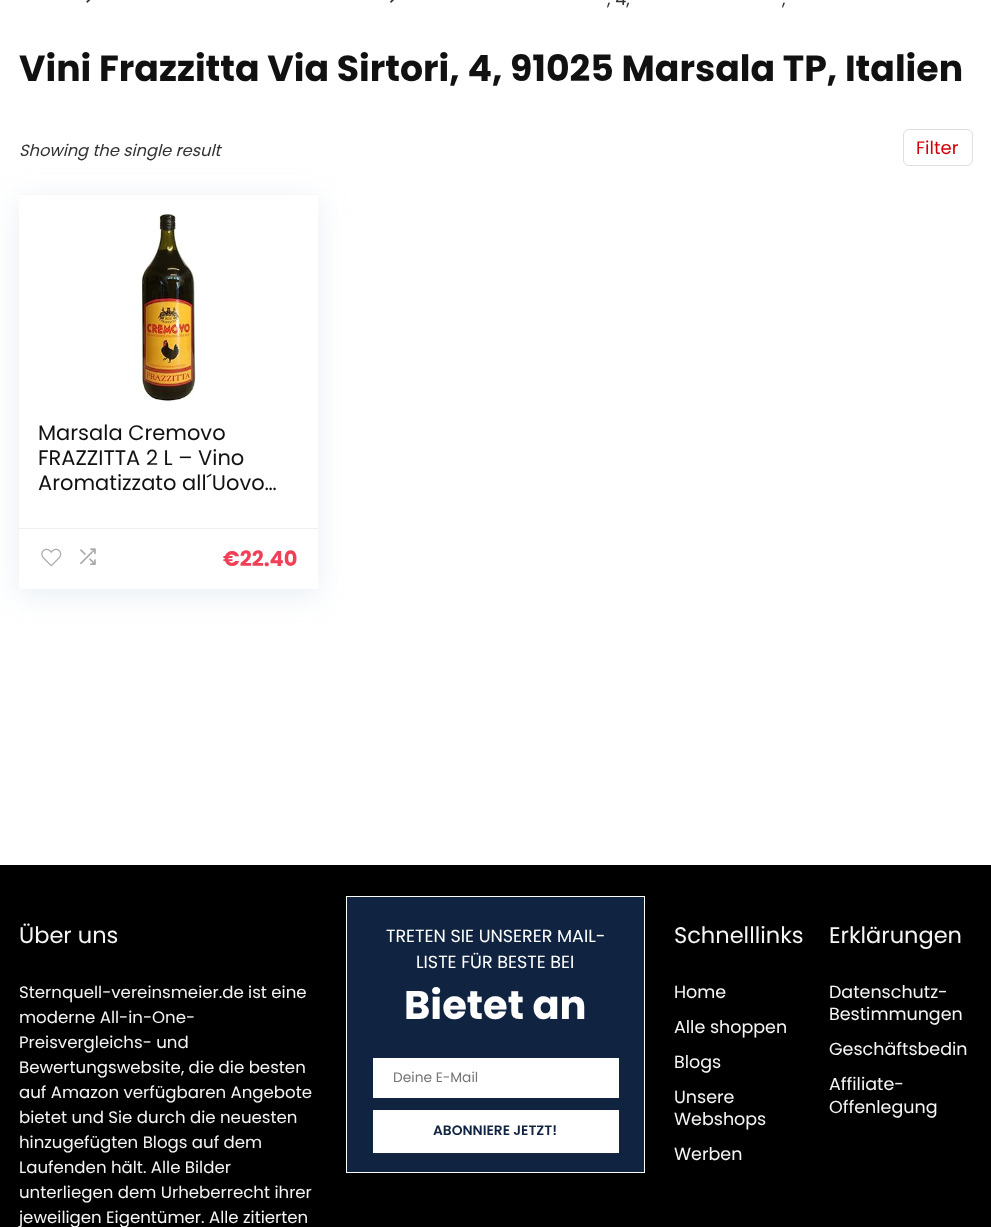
<?xml version="1.0" encoding="UTF-8"?>
<svg xmlns="http://www.w3.org/2000/svg" width="991" height="1227">
    <defs>
        <filter id="blur1" x="-50%" y="-200%" width="200%" height="500%"><feGaussianBlur stdDeviation="14.5"/></filter>
        <filter id="blur2" x="-50%" y="-200%" width="200%" height="500%"><feGaussianBlur stdDeviation="1"/></filter>
    </defs>
    <rect width="100%" height="100%" fill="#FFFFFF"/>
    <image x="86" y="0" width="5" height="3" href="img_01.png"/>
    <image x="390" y="0" width="4" height="3" href="img_02.png"/>
    <text x="607" y="5" font-family="Poppins" font-size="17.5" fill="#333333">, 4,</text>
    <text x="782" y="5" font-family="Poppins" font-size="17.5" fill="#333333">,</text>
    <text x="19" y="81" font-family="Poppins" font-size="36.25" font-weight="700" fill="#111111">Vini Frazzitta Via Sirtori, 4, 91025 Marsala TP, Italien</text>
    <text x="19" y="156" font-family="Poppins" font-size="16.25" font-style="italic" fill="#333333">Showing the single result</text>
    <rect x="903.5" y="129.5" width="69" height="36" rx="5.5" fill="none" stroke="#DCE0E0"/>
    <text x="916" y="154" font-family="Poppins" font-size="18" fill="#D20109">Filter</text>
    <rect x="19" y="200" width="299" height="395" fill="#BCCFDB" fill-opacity="0.35" filter="url(#blur1)"/>
    <rect x="19" y="195" width="299" height="394" fill="#FFFFFF"/>
    <rect x="19" y="194" width="299" height="1" fill="#F8F8F8"/>
    <image x="135" y="214" width="61" height="188" href="img_03.png"/>
    <text font-family="Poppins" font-size="21" fill="#111111">
        <tspan x="38" y="440">Marsala Cremovo</tspan>
        <tspan x="38" y="465">FRAZZITTA 2 L – Vino</tspan>
        <tspan x="38" y="490">Aromatizzato all´Uovo…</tspan>
    </text>
    <rect x="19" y="528" width="299" height="1" fill="#F0F0F0"/>
    <image x="41" y="548" width="21" height="19" href="img_04.png"/>
    <image x="80" y="548" width="16" height="17" href="img_05.png"/>
    <text x="223" y="566" font-family="Poppins" font-size="21" font-weight="700" fill="#F04057">€22.40</text>
    <rect x="0" y="865" width="991" height="362" fill="#000000"/>
    <text x="19" y="943" font-family="Poppins" font-size="22.5" fill="#F5F5F5">Über uns</text>
    <text font-family="Poppins" font-size="16.6" fill="#F5F5F5">
        <tspan x="19" y="998">Sternquell-vereinsmeier.de ist eine</tspan>
        <tspan x="19" y="1023">moderne All-in-One-</tspan>
        <tspan x="19" y="1048">Preisvergleichs- und</tspan>
        <tspan x="19" y="1073">Bewertungswebsite, die die besten</tspan>
        <tspan x="19" y="1098">auf Amazon verfügbaren Angebote</tspan>
        <tspan x="19" y="1123">bietet und Sie durch die neuesten</tspan>
        <tspan x="19" y="1148">hinzugefügten Blogs auf dem</tspan>
        <tspan x="19" y="1173">Laufenden hält. Alle Bilder</tspan>
        <tspan x="19" y="1198">unterliegen dem Urheberrecht ihrer</tspan>
        <tspan x="19" y="1223">jeweiligen Eigentümer. Alle zitierten</tspan>
    </text>
    <rect x="346.5" y="896.5" width="298" height="276" fill="#102341" stroke="#FFFFFF"/>
    <text x="386" y="942" font-family="Poppins" font-size="17.5" fill="#FFFFFF">TRETEN SIE UNSERER MAIL-</text>
    <text x="416" y="968" font-family="Poppins" font-size="17.5" fill="#FFFFFF">LISTE FÜR BESTE BEI</text>
    <text x="404" y="1019" font-family="Poppins" font-size="40" font-weight="700" fill="#FFFFFF">Bietet an</text>
    <rect x="373" y="1058" width="246" height="40" fill="#FFFFFF"/>
    <text x="393" y="1082" font-family="Poppins" font-size="13.75" fill="#757575">Deine E-Mail</text>
    <rect x="373" y="1111" width="246" height="43" fill="#3C4043" fill-opacity="0.3" filter="url(#blur2)"/>
    <rect x="373" y="1110" width="246" height="43" fill="#FFFFFF"/>
    <text x="433" y="1135" font-family="Poppins" font-size="13.75" font-weight="600" fill="#102341">ABONNIERE JETZT!</text>
    <text x="674" y="943" font-family="Poppins" font-size="22.5" fill="#F5F5F5">Schnelllinks</text>
    <text x="674" y="998" font-family="Poppins" font-size="17.5" fill="#F5F5F5">Home</text>
    <text x="674" y="1033" font-family="Poppins" font-size="17.5" fill="#F5F5F5">Alle shoppen</text>
    <text x="674" y="1068" font-family="Poppins" font-size="17.5" fill="#F5F5F5">Blogs</text>
    <text font-family="Poppins" font-size="17.5" fill="#F5F5F5">
        <tspan x="674" y="1103">Unsere</tspan>
        <tspan x="674" y="1125">Webshops</tspan>
    </text>
    <text x="674" y="1160" font-family="Poppins" font-size="17.5" fill="#F5F5F5">Werben</text>
    <text x="829" y="943" font-family="Poppins" font-size="22.5" fill="#F5F5F5">Erklärungen</text>
    <text font-family="Poppins" font-size="17.5" fill="#F5F5F5">
        <tspan x="829" y="998">Datenschutz-</tspan>
        <tspan x="829" y="1020">Bestimmungen</tspan>
    </text>
    <text x="829" y="1055" font-family="Poppins" font-size="17.5" fill="#F5F5F5">Geschäftsbedin</text>
    <text font-family="Poppins" font-size="17.5" fill="#F5F5F5">
        <tspan x="829" y="1090">Affiliate-</tspan>
        <tspan x="829" y="1113">Offenlegung</tspan>
    </text>
</svg>
